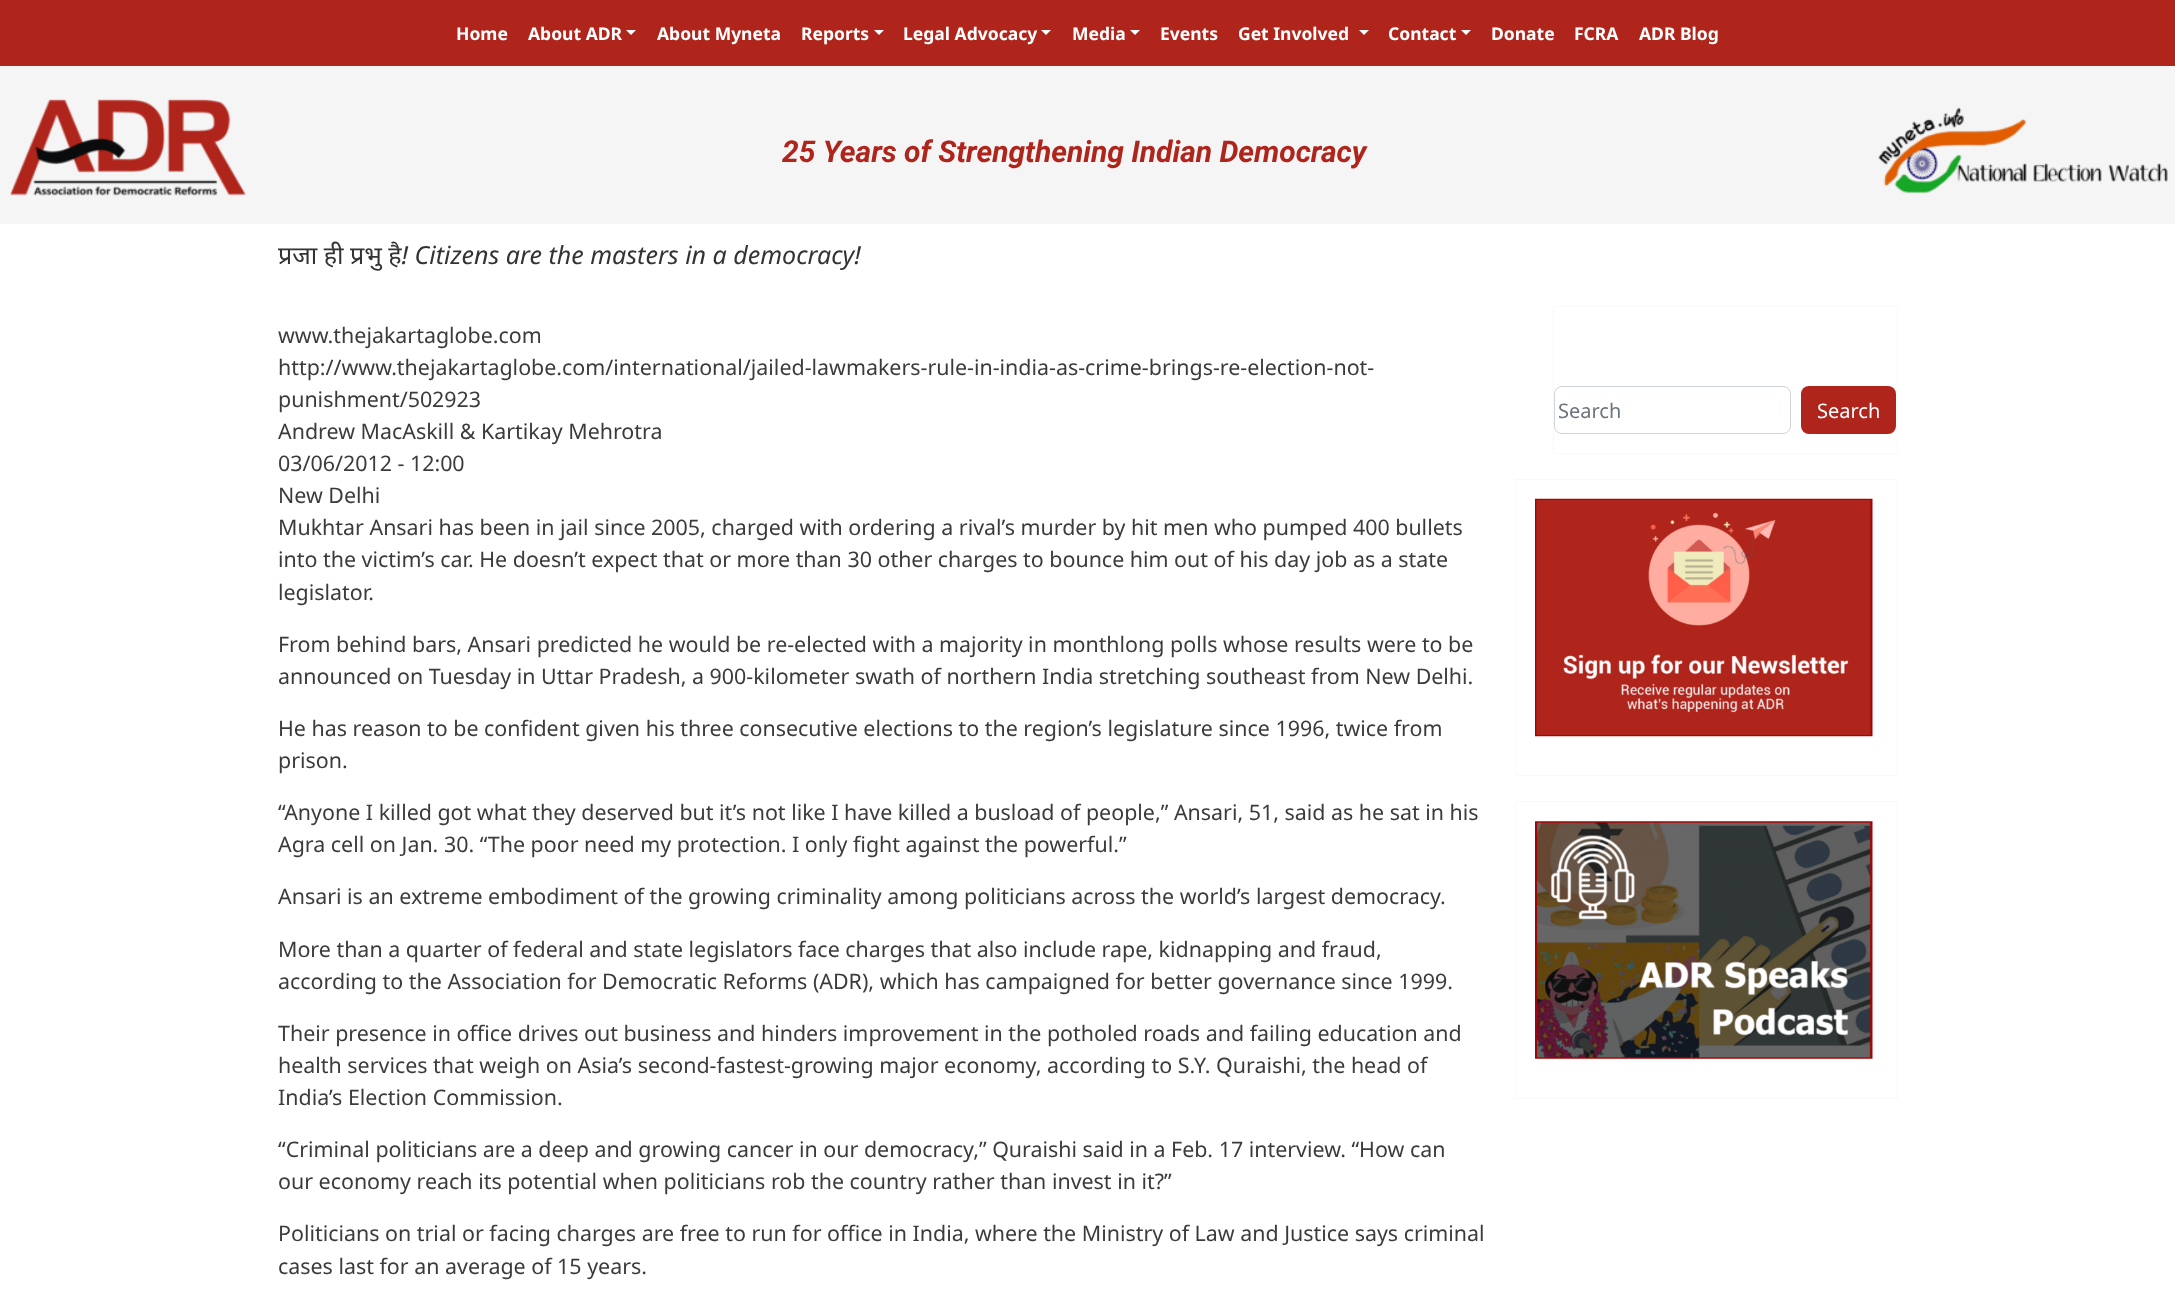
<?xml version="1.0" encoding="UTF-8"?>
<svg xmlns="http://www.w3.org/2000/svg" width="2175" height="1302">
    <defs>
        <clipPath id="clip1"><rect x="278" y="224" width="1620" height="82"/></clipPath>
    </defs>
    <rect width="100%" height="100%" fill="#FFFFFF"/>
    <rect x="0" y="0" width="2175" height="66" fill="#AF251C"/>
    <text x="456" y="40" font-family="Noto Sans" font-size="17.5" font-weight="700" fill="#FFFFFF">Home</text>
    <text x="528" y="40" font-family="Noto Sans" font-size="17.5" font-weight="700" fill="#FFFFFF">About ADR</text>
    <path d="M 626 30 H 636 L 631 35 Z" fill="#FFFFFF"/>
    <text x="657" y="40" font-family="Noto Sans" font-size="17.5" font-weight="700" fill="#FFFFFF">About Myneta</text>
    <text x="801" y="40" font-family="Noto Sans" font-size="17.5" font-weight="700" fill="#FFFFFF">Reports</text>
    <path d="M 874 30 H 884 L 879 35 Z" fill="#FFFFFF"/>
    <text x="903" y="40" font-family="Noto Sans" font-size="17.5" font-weight="700" fill="#FFFFFF">Legal Advocacy</text>
    <path d="M 1041 30 H 1051 L 1046 35 Z" fill="#FFFFFF"/>
    <text x="1072" y="40" font-family="Noto Sans" font-size="17.5" font-weight="700" fill="#FFFFFF">Media</text>
    <path d="M 1130 30 H 1140 L 1135 35 Z" fill="#FFFFFF"/>
    <text x="1160" y="40" font-family="Noto Sans" font-size="17.5" font-weight="700" fill="#FFFFFF">Events</text>
    <text x="1238" y="40" font-family="Noto Sans" font-size="17.5" font-weight="700" fill="#FFFFFF">Get Involved</text>
    <path d="M 1359 30 H 1369 L 1364 35 Z" fill="#FFFFFF"/>
    <text x="1388" y="40" font-family="Noto Sans" font-size="17.5" font-weight="700" fill="#FFFFFF">Contact</text>
    <path d="M 1461 30 H 1471 L 1466 35 Z" fill="#FFFFFF"/>
    <text x="1491" y="40" font-family="Noto Sans" font-size="17.5" font-weight="700" fill="#FFFFFF">Donate</text>
    <text x="1574" y="40" font-family="Noto Sans" font-size="17.5" font-weight="700" fill="#FFFFFF">FCRA</text>
    <text x="1639" y="40" font-family="Noto Sans" font-size="17.5" font-weight="700" fill="#FFFFFF">ADR Blog</text>
    <rect x="0" y="66" width="2175" height="158" fill="#F5F5F5"/>
    <image x="10" y="99" width="236" height="97" href="img_01.png"/>
    <text x="782" y="162" font-family="Roboto" font-size="30" font-weight="700" font-style="italic" fill="#AF251C">25 Years of Strengthening Indian Democracy</text>
    <image x="1878" y="107" width="290" height="87" href="img_02.png"/>
    <g clip-path="url(#clip1)">
        <text x="278" y="264" font-family="Noto Sans" font-size="25" font-style="italic" fill="#333333">प्रजा ही प्रभु है! Citizens are the masters in a democracy!</text>
    </g>
    <text font-family="Noto Sans" font-size="21.42" fill="#3B3B3B">
        <tspan x="278" y="343">www.thejakartaglobe.com</tspan>
        <tspan x="278" y="375">http://www.thejakartaglobe.com/international/jailed-lawmakers-rule-in-india-as-crime-brings-re-election-not-</tspan>
        <tspan x="278" y="407">punishment/502923</tspan>
        <tspan x="278" y="439">Andrew MacAskill &amp; Kartikay Mehrotra</tspan>
        <tspan x="278" y="471">03/06/2012 - 12:00</tspan>
        <tspan x="278" y="503">New Delhi</tspan>
        <tspan x="278" y="535">Mukhtar Ansari has been in jail since 2005, charged with ordering a rival’s murder by hit men who pumped 400 bullets</tspan>
        <tspan x="278" y="567">into the victim’s car. He doesn’t expect that or more than 30 other charges to bounce him out of his day job as a state</tspan>
        <tspan x="278" y="600">legislator.</tspan>
    </text>
    <text font-family="Noto Sans" font-size="21.42" fill="#3B3B3B">
        <tspan x="278" y="652">From behind bars, Ansari predicted he would be re-elected with a majority in monthlong polls whose results were to be</tspan>
        <tspan x="278" y="684">announced on Tuesday in Uttar Pradesh, a 900-kilometer swath of northern India stretching southeast from New Delhi.</tspan>
    </text>
    <text font-family="Noto Sans" font-size="21.42" fill="#3B3B3B">
        <tspan x="278" y="736">He has reason to be confident given his three consecutive elections to the region’s legislature since 1996, twice from</tspan>
        <tspan x="278" y="768">prison.</tspan>
    </text>
    <text font-family="Noto Sans" font-size="21.42" fill="#3B3B3B">
        <tspan x="278" y="820">“Anyone I killed got what they deserved but it’s not like I have killed a busload of people,” Ansari, 51, said as he sat in his</tspan>
        <tspan x="278" y="852">Agra cell on Jan. 30. “The poor need my protection. I only fight against the powerful.”</tspan>
    </text>
    <text x="278" y="904" font-family="Noto Sans" font-size="21.42" fill="#3B3B3B">Ansari is an extreme embodiment of the growing criminality among politicians across the world’s largest democracy.</text>
    <text font-family="Noto Sans" font-size="21.42" fill="#3B3B3B">
        <tspan x="278" y="957">More than a quarter of federal and state legislators face charges that also include rape, kidnapping and fraud,</tspan>
        <tspan x="278" y="989">according to the Association for Democratic Reforms (ADR), which has campaigned for better governance since 1999.</tspan>
    </text>
    <text font-family="Noto Sans" font-size="21.42" fill="#3B3B3B">
        <tspan x="278" y="1041">Their presence in office drives out business and hinders improvement in the potholed roads and failing education and</tspan>
        <tspan x="278" y="1073">health services that weigh on Asia’s second-fastest-growing major economy, according to S.Y. Quraishi, the head of</tspan>
        <tspan x="278" y="1105">India’s Election Commission.</tspan>
    </text>
    <text font-family="Noto Sans" font-size="21.42" fill="#3B3B3B">
        <tspan x="278" y="1157">“Criminal politicians are a deep and growing cancer in our democracy,” Quraishi said in a Feb. 17 interview. “How can</tspan>
        <tspan x="278" y="1189">our economy reach its potential when politicians rob the country rather than invest in it?”</tspan>
    </text>
    <text font-family="Noto Sans" font-size="21.42" fill="#3B3B3B">
        <tspan x="278" y="1241">Politicians on trial or facing charges are free to run for office in India, where the Ministry of Law and Justice says criminal</tspan>
        <tspan x="278" y="1274">cases last for an average of 15 years.</tspan>
    </text>
    <rect x="1553.5" y="306.5" width="344" height="147" fill="none" stroke="#F9F9F9"/>
    <rect x="1554.5" y="386.5" width="236" height="47" rx="7.5" fill="none" stroke="#CED4DA"/>
    <text x="1558" y="418" font-family="Noto Sans" font-size="20" fill="#6C757D">Search</text>
    <rect x="1801" y="386" width="95" height="48" rx="8" fill="#AF251C"/>
    <text x="1817" y="418" font-family="Noto Sans" font-size="20" fill="#FFFFFF">Search</text>
    <rect x="1515.5" y="479.5" width="382" height="296" fill="none" stroke="#F9F9F9"/>
    <image x="1535" y="498" width="338" height="239" href="img_03.png"/>
    <rect x="1515.5" y="801.5" width="382" height="297" fill="none" stroke="#F9F9F9"/>
    <image x="1535" y="821" width="338" height="238" href="img_04.png"/>
</svg>
